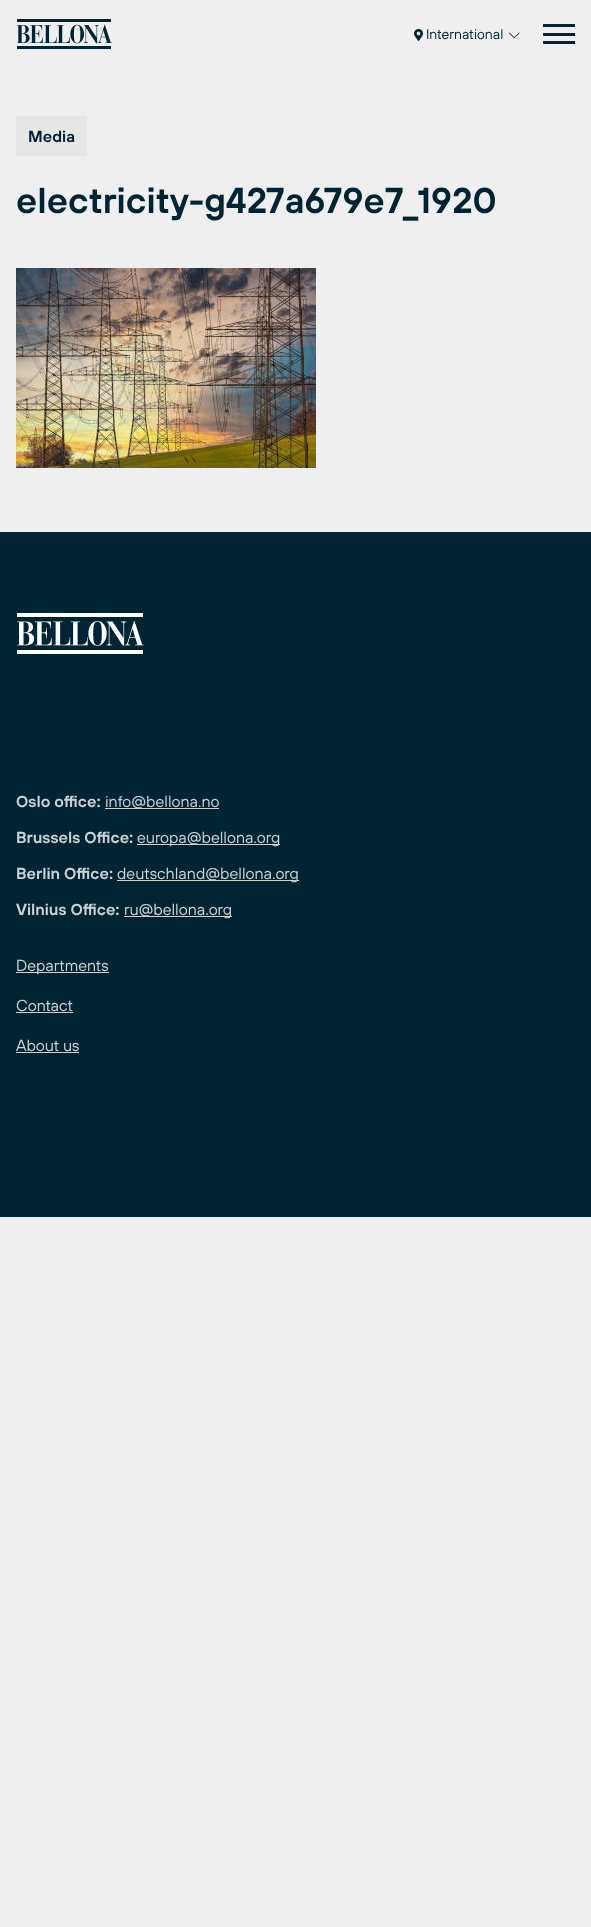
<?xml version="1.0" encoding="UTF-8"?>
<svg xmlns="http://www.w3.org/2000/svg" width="591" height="1927">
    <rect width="100%" height="100%" fill="#EFEFEF"/>
    <image x="17" y="19" width="95" height="30" href="img_01.png"/>
    <image x="414" y="29" width="9" height="12" href="img_02.png"/>
    <text x="426" y="39" font-family="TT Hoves" font-size="14" fill="#002433">International</text>
    <image x="509" y="32" width="11" height="7" href="img_03.png"/>
    <rect x="543" y="24" width="32" height="3" fill="#002433"/>
    <rect x="543" y="33" width="32" height="3" fill="#002433"/>
    <rect x="543" y="41" width="32" height="3" fill="#002433"/>
    <rect x="16" y="116" width="71" height="40" fill="#E7E7E7"/>
    <text x="28" y="142" font-family="TT Hoves" font-size="16" font-weight="600" fill="#002433">Media</text>
    <text x="16" y="213" font-family="TT Hoves" font-size="36" font-weight="600" fill="#002433">electricity-g427a679e7_1920</text>
    <image x="16" y="268" width="300" height="200" href="img_04.png"/>
    <rect x="0" y="532" width="591" height="685" fill="#002433"/>
    <image x="17" y="613" width="127" height="41" href="img_05.png"/>
    <text x="16" y="807" font-family="TT Hoves" font-size="16" font-weight="600" fill="#CCD3D6">Oslo office:</text>
    <rect x="105" y="808" width="114" height="1" fill="#CCD3D6"/>
    <text x="105" y="807" font-family="TT Hoves" font-size="16" fill="#CCD3D6">info@bellona.no</text>
    <text x="16" y="843" font-family="TT Hoves" font-size="16" font-weight="600" fill="#CCD3D6">Brussels Office:</text>
    <rect x="137" y="844" width="143" height="1" fill="#CCD3D6"/>
    <text x="137" y="843" font-family="TT Hoves" font-size="16" fill="#CCD3D6">europa@bellona.org</text>
    <text x="16" y="879" font-family="TT Hoves" font-size="16" font-weight="600" fill="#CCD3D6">Berlin Office:</text>
    <rect x="117" y="880" width="182" height="1" fill="#CCD3D6"/>
    <text x="117" y="879" font-family="TT Hoves" font-size="16" fill="#CCD3D6">deutschland@bellona.org</text>
    <text x="16" y="915" font-family="TT Hoves" font-size="16" font-weight="600" fill="#CCD3D6">Vilnius Office:</text>
    <rect x="124" y="916" width="108" height="1" fill="#CCD3D6"/>
    <text x="124" y="915" font-family="TT Hoves" font-size="16" fill="#CCD3D6">ru@bellona.org</text>
    <rect x="16" y="972" width="93" height="1" fill="#CCD3D6"/>
    <text x="16" y="971" font-family="TT Hoves" font-size="16" fill="#CCD3D6">Departments</text>
    <text x="16" y="1011" font-family="TT Hoves" font-size="16" fill="#CCD3D6">Contact</text>
    <rect x="16" y="1012" width="57" height="1" fill="#CCD3D6"/>
    <text x="16" y="1051" font-family="TT Hoves" font-size="16" fill="#CCD3D6">About us</text>
    <rect x="16" y="1052" width="63" height="1" fill="#CCD3D6"/>
</svg>
